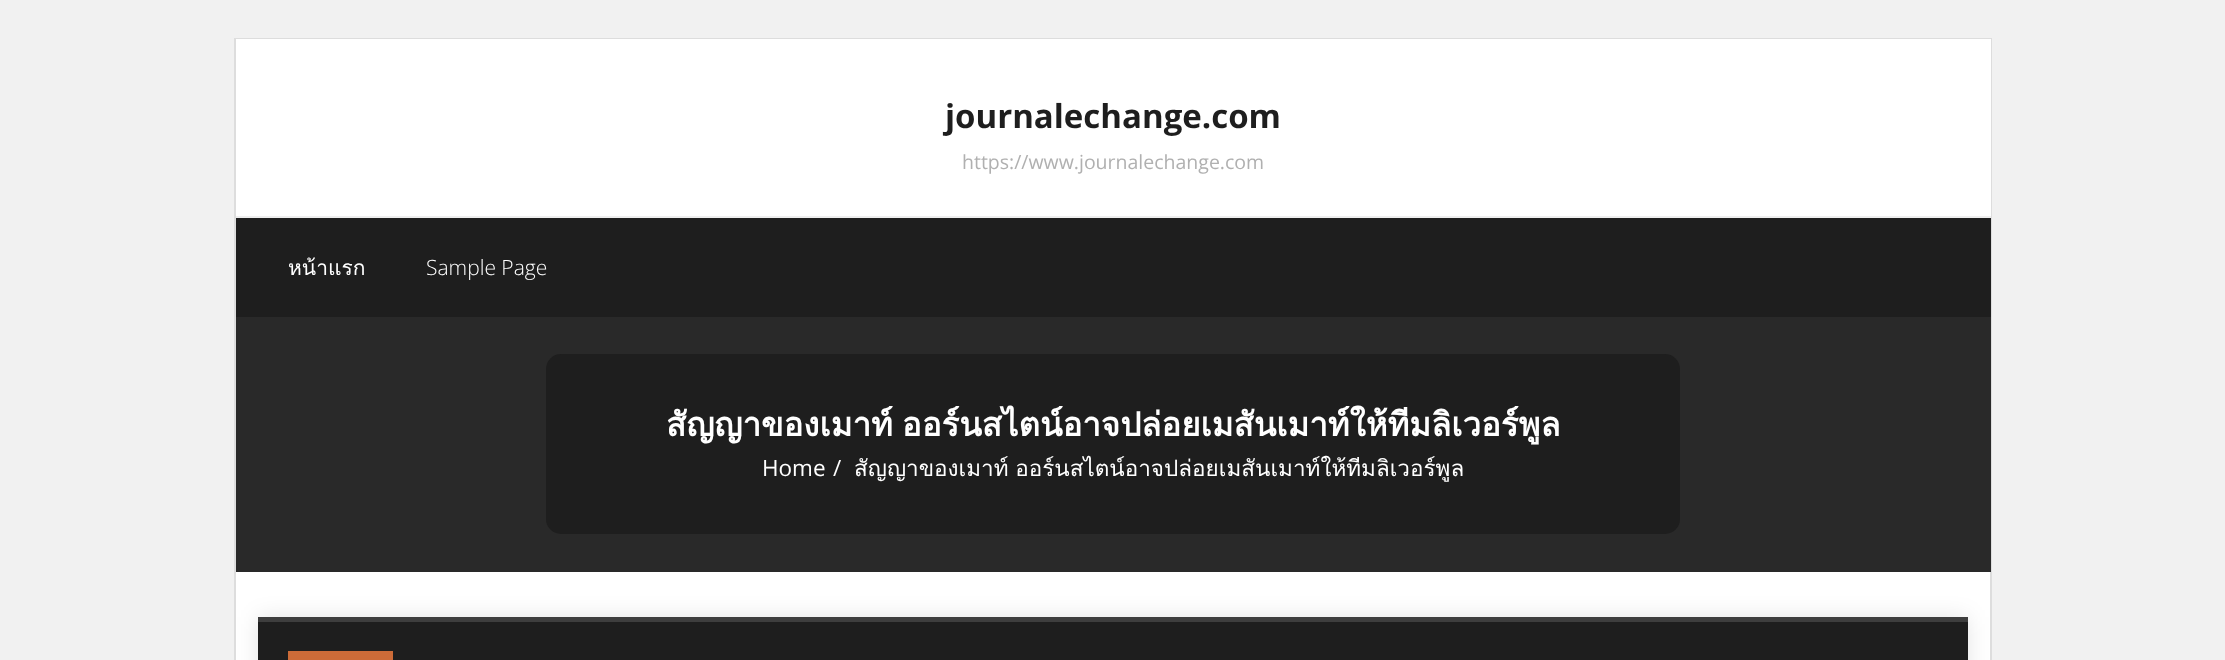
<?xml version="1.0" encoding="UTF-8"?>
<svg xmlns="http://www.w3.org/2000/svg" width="2225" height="660">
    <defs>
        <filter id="blur1" x="-50%" y="-200%" width="200%" height="500%"><feGaussianBlur stdDeviation="11"/></filter>
    </defs>
    <rect width="100%" height="100%" fill="#F1F1F1"/>
    <rect x="236" y="572" width="1754" height="88" fill="#FFFFFF"/>
    <rect x="235" y="39" width="1756" height="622" fill="none" stroke="#DDDDDD" stroke-width="2"/>
    <rect x="236" y="39" width="1755" height="177" fill="#FFFFFF"/>
    <text x="945" y="128" font-family="Open Sans" font-size="33" font-weight="700" fill="#1E1E1E">journalechange.com</text>
    <text x="962" y="169" font-family="Open Sans" font-size="19.5" fill="#B0B0B0">https://www.journalechange.com</text>
    <rect x="236" y="218" width="1755" height="99" fill="#1E1E1E"/>
    <rect x="236" y="216" width="1755" height="2" fill="#EEEEEE"/>
    <text x="288" y="275" font-family="Loma" font-size="21" fill="#FFFFFF">หน้าแรก</text>
    <text x="426" y="275" font-family="Open Sans" font-size="21" font-weight="300" fill="#FFFFFF">Sample Page</text>
    <rect x="236" y="317" width="1755" height="255" fill="#292929"/>
    <rect x="546" y="354" width="1134" height="180" rx="15" fill="#1E1E1E"/>
    <text x="666" y="436" word-spacing="-2" font-family="Loma" font-size="33" font-weight="700" fill="#FFFFFF">สัญญาของเมาท์ ออร์นสไตน์อาจปล่อยเมสันเมาท์ให้ทีมลิเวอร์พูล</text>
    <text x="762" y="476" font-family="Open Sans" font-size="22.5" fill="#FFFFFF">Home</text>
    <text x="833" y="476" font-family="Open Sans" font-size="22.5" fill="#FFFFFF">/</text>
    <text x="854" y="476" word-spacing="-1" font-family="Loma" font-size="22.5" fill="#FFFFFF">สัญญาของเมาท์ ออร์นสไตน์อาจปล่อยเมสันเมาท์ให้ทีมลิเวอร์พูล</text>
    <rect x="258" y="617" width="1710" height="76" fill="#000000" fill-opacity="0.1" filter="url(#blur1)"/>
    <rect x="258" y="622" width="1710" height="38" fill="#1E1E1E"/>
    <rect x="258" y="617" width="1710" height="5" fill="#3E3E3E"/>
    <rect x="288" y="651" width="105" height="9" fill="#CC6B38"/>
</svg>
